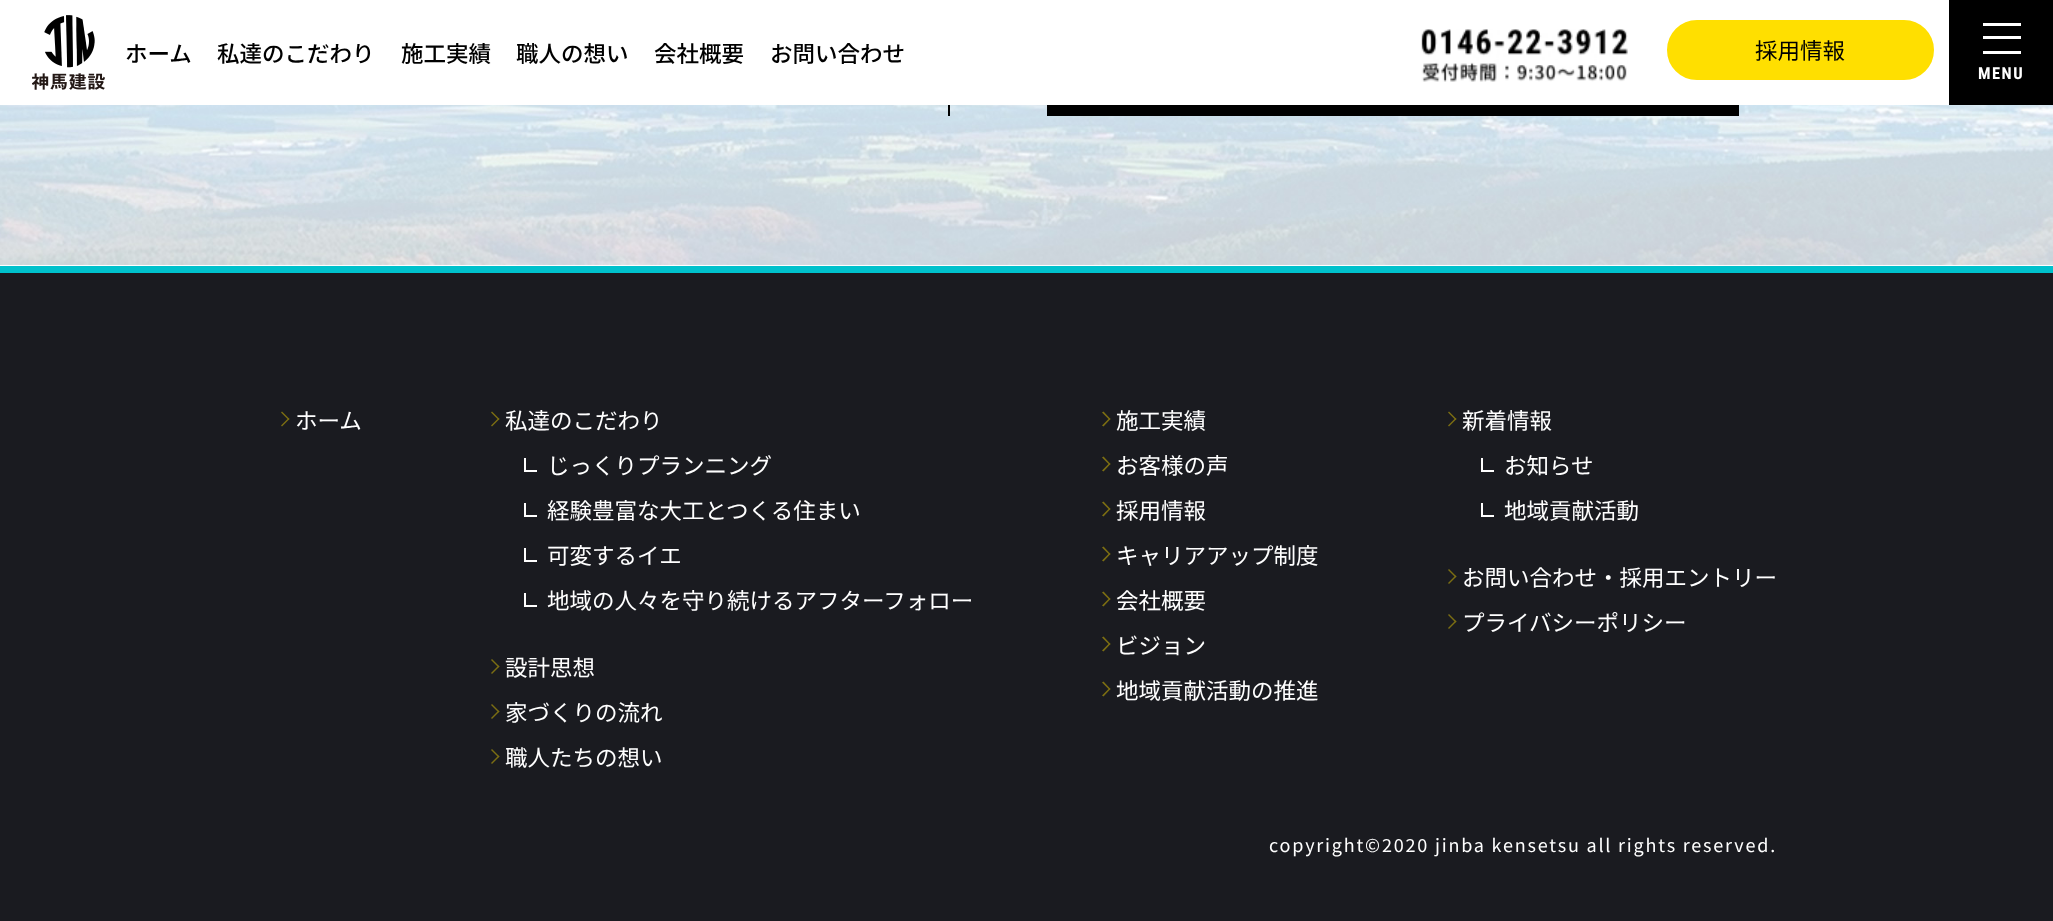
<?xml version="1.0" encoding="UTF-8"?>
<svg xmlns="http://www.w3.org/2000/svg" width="2053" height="921">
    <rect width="100%" height="100%" fill="#FFFFFF"/>
    <image x="32" y="15" width="73" height="75" href="img_01.png"/>
    <text x="125" y="62" font-family="Noto Sans CJK JP" font-size="22.5" font-weight="500" fill="#000000">ホーム</text>
    <text x="217" y="62" font-family="Noto Sans CJK JP" font-size="22.5" font-weight="500" fill="#000000">私達のこだわり</text>
    <text x="401" y="62" font-family="Noto Sans CJK JP" font-size="22.5" font-weight="500" fill="#000000">施工実績</text>
    <text x="516" y="62" font-family="Noto Sans CJK JP" font-size="22.5" font-weight="500" fill="#000000">職人の想い</text>
    <text x="654" y="62" font-family="Noto Sans CJK JP" font-size="22.5" font-weight="500" fill="#000000">会社概要</text>
    <text x="770" y="62" font-family="Noto Sans CJK JP" font-size="22.5" font-weight="500" fill="#000000">お問い合わせ</text>
    <image x="1421" y="29" width="207" height="53" href="img_02.png"/>
    <rect x="1668" y="21" width="265" height="58" rx="29" fill="#FFDF00" stroke="#FFDF00" stroke-width="2"/>
    <text x="1755" y="59" font-family="Noto Sans CJK JP" font-size="22.5" fill="#000000">採用情報</text>
    <rect x="1949" y="0" width="104" height="105" fill="#000000"/>
    <rect x="1983" y="23" width="38" height="3" fill="#FFFFFF"/>
    <rect x="1983" y="36" width="38" height="3" fill="#FFFFFF"/>
    <rect x="1983" y="51" width="38" height="3" fill="#FFFFFF"/>
    <text x="1978" y="79" font-family="Roboto Condensed" font-size="16.5" font-weight="700" letter-spacing="1.5" fill="#FFFFFF">MENU</text>
    <image x="0" y="105" width="2053" height="160" href="img_03.png"/>
    <rect x="948" y="105" width="2" height="11" fill="#000000"/>
    <rect x="1047" y="105" width="692" height="11" fill="#000000"/>
    <rect x="0" y="273" width="2053" height="648" fill="#1A1B20"/>
    <rect x="0" y="266" width="2053" height="7" fill="#00C1CC"/>
    <path d="M 282 411.5 L 289.5 419 L 288.5 420 L 281 412.5 Z" fill="#7B6E12"/>
    <path d="M 288.5 418 L 289.5 419 L 282 426.5 L 281 425.5 Z" fill="#7B6E12"/>
    <text x="295" y="429" font-family="Noto Sans CJK JP" font-size="22.5" fill="#FFFFFF">ホーム</text>
    <path d="M 492 411.5 L 499.5 419 L 498.5 420 L 491 412.5 Z" fill="#7B6E12"/>
    <path d="M 498.5 418 L 499.5 419 L 492 426.5 L 491 425.5 Z" fill="#7B6E12"/>
    <text x="505" y="429" font-family="Noto Sans CJK JP" font-size="22.5" fill="#FFFFFF">私達のこだわり</text>
    <rect x="524" y="470" width="13" height="2" fill="#FFFFFF"/>
    <rect x="524" y="458" width="2" height="13" fill="#FFFFFF"/>
    <text x="547" y="474" font-family="Noto Sans CJK JP" font-size="22.5" fill="#FFFFFF">じっくりプランニング</text>
    <rect x="524" y="515" width="13" height="2" fill="#FFFFFF"/>
    <rect x="524" y="503" width="2" height="13" fill="#FFFFFF"/>
    <text x="547" y="519" font-family="Noto Sans CJK JP" font-size="22.5" fill="#FFFFFF">経験豊富な大工とつくる住まい</text>
    <rect x="524" y="560" width="13" height="2" fill="#FFFFFF"/>
    <rect x="524" y="548" width="2" height="13" fill="#FFFFFF"/>
    <text x="547" y="564" font-family="Noto Sans CJK JP" font-size="22.5" fill="#FFFFFF">可変するイエ</text>
    <rect x="524" y="605" width="13" height="2" fill="#FFFFFF"/>
    <rect x="524" y="593" width="2" height="13" fill="#FFFFFF"/>
    <text x="547" y="609" font-family="Noto Sans CJK JP" font-size="22.5" fill="#FFFFFF">地域の人々を守り続けるアフターフォロー</text>
    <path d="M 492 659 L 499.5 666.5 L 498.5 667.5 L 491 660 Z" fill="#7B6E12"/>
    <path d="M 498.5 665.5 L 499.5 666.5 L 492 674 L 491 673 Z" fill="#7B6E12"/>
    <text x="505" y="676" font-family="Noto Sans CJK JP" font-size="22.5" fill="#FFFFFF">設計思想</text>
    <path d="M 492 704 L 499.5 711.5 L 498.5 712.5 L 491 705 Z" fill="#7B6E12"/>
    <path d="M 498.5 710.5 L 499.5 711.5 L 492 719 L 491 718 Z" fill="#7B6E12"/>
    <text x="505" y="721" font-family="Noto Sans CJK JP" font-size="22.5" fill="#FFFFFF">家づくりの流れ</text>
    <path d="M 492 749 L 499.5 756.5 L 498.5 757.5 L 491 750 Z" fill="#7B6E12"/>
    <path d="M 498.5 755.5 L 499.5 756.5 L 492 764 L 491 763 Z" fill="#7B6E12"/>
    <text x="505" y="766" font-family="Noto Sans CJK JP" font-size="22.5" fill="#FFFFFF">職人たちの想い</text>
    <path d="M 1103.5 411.5 L 1110.5 419 L 1109.5 420 L 1102 412.5 Z" fill="#7B6E12"/>
    <path d="M 1109.5 418 L 1110.5 419 L 1103.5 426.5 L 1102 425.5 Z" fill="#7B6E12"/>
    <text x="1116" y="429" font-family="Noto Sans CJK JP" font-size="22.5" fill="#FFFFFF">施工実績</text>
    <path d="M 1103.5 456.5 L 1110.5 464 L 1109.5 465 L 1102 457.5 Z" fill="#7B6E12"/>
    <path d="M 1109.5 463 L 1110.5 464 L 1103.5 471.5 L 1102 470.5 Z" fill="#7B6E12"/>
    <text x="1116" y="474" font-family="Noto Sans CJK JP" font-size="22.5" fill="#FFFFFF">お客様の声</text>
    <path d="M 1103.5 501.5 L 1110.5 509 L 1109.5 510 L 1102 502.5 Z" fill="#7B6E12"/>
    <path d="M 1109.5 508 L 1110.5 509 L 1103.5 516.5 L 1102 515.5 Z" fill="#7B6E12"/>
    <text x="1116" y="519" font-family="Noto Sans CJK JP" font-size="22.5" fill="#FFFFFF">採用情報</text>
    <path d="M 1103.5 546.5 L 1110.5 554 L 1109.5 555 L 1102 547.5 Z" fill="#7B6E12"/>
    <path d="M 1109.5 553 L 1110.5 554 L 1103.5 561.5 L 1102 560.5 Z" fill="#7B6E12"/>
    <text x="1116" y="564" font-family="Noto Sans CJK JP" font-size="22.5" fill="#FFFFFF">キャリアアップ制度</text>
    <path d="M 1103.5 591.5 L 1110.5 599 L 1109.5 600 L 1102 592.5 Z" fill="#7B6E12"/>
    <path d="M 1109.5 598 L 1110.5 599 L 1103.5 606.5 L 1102 605.5 Z" fill="#7B6E12"/>
    <text x="1116" y="609" font-family="Noto Sans CJK JP" font-size="22.5" fill="#FFFFFF">会社概要</text>
    <path d="M 1103.5 636.5 L 1110.5 644 L 1109.5 645 L 1102 637.5 Z" fill="#7B6E12"/>
    <path d="M 1109.5 643 L 1110.5 644 L 1103.5 651.5 L 1102 650.5 Z" fill="#7B6E12"/>
    <text x="1116" y="654" font-family="Noto Sans CJK JP" font-size="22.5" fill="#FFFFFF">ビジョン</text>
    <path d="M 1103.5 681.5 L 1110.5 689 L 1109.5 690 L 1102 682.5 Z" fill="#7B6E12"/>
    <path d="M 1109.5 688 L 1110.5 689 L 1103.5 696.5 L 1102 695.5 Z" fill="#7B6E12"/>
    <text x="1116" y="699" font-family="Noto Sans CJK JP" font-size="22.5" fill="#FFFFFF">地域貢献活動の推進</text>
    <path d="M 1449 411.5 L 1456.5 419 L 1455.5 420 L 1448 412.5 Z" fill="#7B6E12"/>
    <path d="M 1455.5 418 L 1456.5 419 L 1449 426.5 L 1448 425.5 Z" fill="#7B6E12"/>
    <text x="1462" y="429" font-family="Noto Sans CJK JP" font-size="22.5" fill="#FFFFFF">新着情報</text>
    <rect x="1481" y="470" width="13" height="2" fill="#FFFFFF"/>
    <rect x="1481" y="458" width="2" height="13" fill="#FFFFFF"/>
    <text x="1504" y="474" font-family="Noto Sans CJK JP" font-size="22.5" fill="#FFFFFF">お知らせ</text>
    <rect x="1481" y="515" width="13" height="2" fill="#FFFFFF"/>
    <rect x="1481" y="503" width="2" height="13" fill="#FFFFFF"/>
    <text x="1504" y="519" font-family="Noto Sans CJK JP" font-size="22.5" fill="#FFFFFF">地域貢献活動</text>
    <path d="M 1449 569 L 1456.5 576.5 L 1455.5 577.5 L 1448 570 Z" fill="#7B6E12"/>
    <path d="M 1455.5 575.5 L 1456.5 576.5 L 1449 584 L 1448 583 Z" fill="#7B6E12"/>
    <text x="1462" y="586" font-family="Noto Sans CJK JP" font-size="22.5" fill="#FFFFFF">お問い合わせ・採用エントリー</text>
    <path d="M 1449 614 L 1456.5 621.5 L 1455.5 622.5 L 1448 615 Z" fill="#7B6E12"/>
    <path d="M 1455.5 620.5 L 1456.5 621.5 L 1449 629 L 1448 628 Z" fill="#7B6E12"/>
    <text x="1462" y="631" font-family="Noto Sans CJK JP" font-size="22.5" fill="#FFFFFF">プライバシーポリシー</text>
    <text x="1269" y="852" font-family="Noto Sans CJK JP" font-size="18" letter-spacing="1.8" fill="#FFFFFF">copyright©2020 jinba kensetsu all rights reserved.</text>
</svg>
